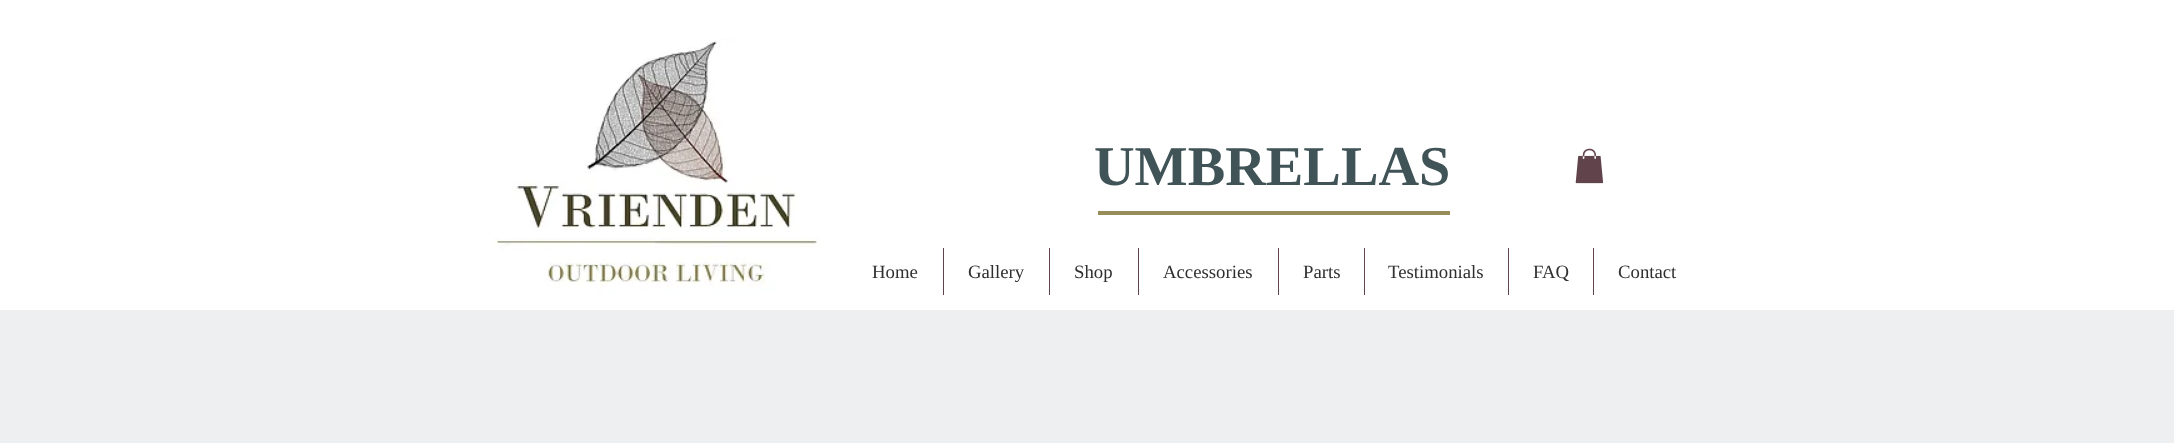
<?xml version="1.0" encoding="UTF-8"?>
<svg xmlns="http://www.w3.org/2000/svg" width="2174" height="443">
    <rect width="100%" height="100%" fill="#EDEFF0"/>
    <rect x="0" y="0" width="2174" height="310" fill="#FFFFFF"/>
    <image x="475" y="38" width="371" height="257" href="img_01.png"/>
    <text x="1094" y="185" font-family="Liberation Serif" font-size="56.25" font-weight="700" fill="#405357">UMBRELLAS</text>
    <image x="1575" y="148" width="29" height="36" href="img_02.png"/>
    <rect x="1098" y="211" width="352" height="4" fill="#968D5B"/>
    <text x="872" y="278" font-family="Liberation Serif" font-size="18.75" fill="#2F2F2F">Home</text>
    <rect x="943" y="248" width="1" height="47" fill="#61434B"/>
    <text x="968" y="278" font-family="Liberation Serif" font-size="18.75" fill="#2F2F2F">Gallery</text>
    <rect x="1049" y="248" width="1" height="47" fill="#61434B"/>
    <text x="1074" y="278" font-family="Liberation Serif" font-size="18.75" fill="#2F2F2F">Shop</text>
    <rect x="1138" y="248" width="1" height="47" fill="#61434B"/>
    <text x="1163" y="278" font-family="Liberation Serif" font-size="18.75" fill="#2F2F2F">Accessories</text>
    <rect x="1278" y="248" width="1" height="47" fill="#61434B"/>
    <text x="1303" y="278" font-family="Liberation Serif" font-size="18.75" fill="#2F2F2F">Parts</text>
    <rect x="1364" y="248" width="1" height="47" fill="#61434B"/>
    <text x="1388" y="278" font-family="Liberation Serif" font-size="18.75" fill="#2F2F2F">Testimonials</text>
    <rect x="1508" y="248" width="1" height="47" fill="#61434B"/>
    <text x="1533" y="278" font-family="Liberation Serif" font-size="18.75" fill="#2F2F2F">FAQ</text>
    <rect x="1593" y="248" width="1" height="47" fill="#61434B"/>
    <text x="1618" y="278" font-family="Liberation Serif" font-size="18.75" fill="#2F2F2F">Contact</text>
</svg>
